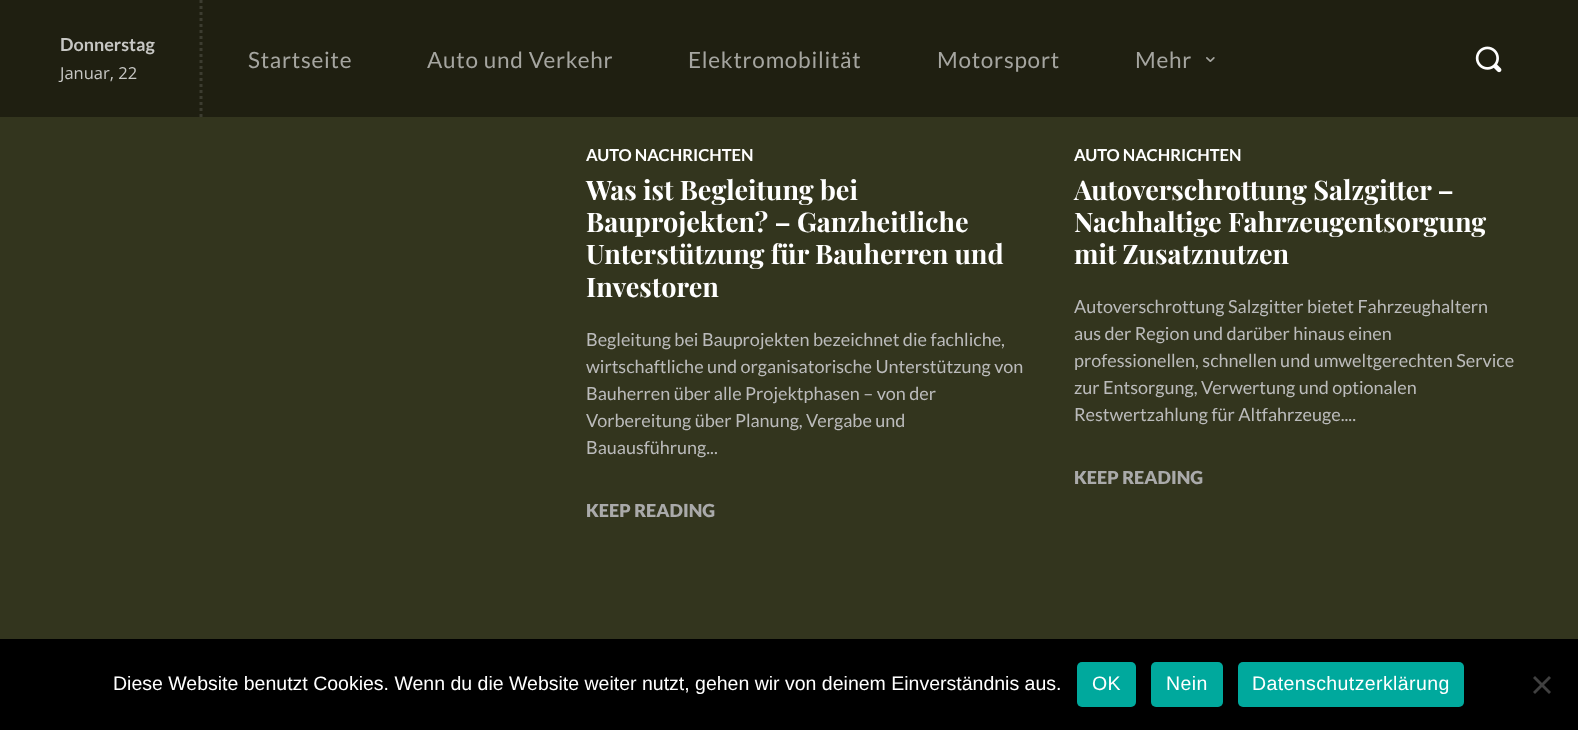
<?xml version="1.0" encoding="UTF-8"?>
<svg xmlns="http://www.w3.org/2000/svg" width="1578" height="730">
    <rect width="100%" height="100%" fill="#33351E"/>
    <rect x="0" y="0" width="1578" height="117" fill="#1F1F11"/>
    <text x="60" y="51" font-family="Lato" font-size="18" font-weight="700" fill="#C7C7C4">Donnerstag</text>
    <text x="60" y="79" font-family="Open Sans" font-size="16.5" fill="#C7C7C4">Januar, 22</text>
    <path d="M 201 0 V 117" fill="none" stroke="#3C3C30" stroke-width="3" stroke-dasharray="3 3"/>
    <text x="248" y="68" font-family="Lato" font-size="22.5" letter-spacing="0.75" fill="#A5A5A0">Startseite</text>
    <text x="427" y="68" font-family="Lato" font-size="22.5" letter-spacing="0.75" fill="#A5A5A0">Auto und Verkehr</text>
    <text x="688" y="68" font-family="Lato" font-size="22.5" letter-spacing="0.75" fill="#A5A5A0">Elektromobilität</text>
    <text x="937" y="68" font-family="Lato" font-size="22.5" letter-spacing="0.75" fill="#A5A5A0">Motorsport</text>
    <text x="1135" y="68" font-family="Lato" font-size="22.5" letter-spacing="0.75" fill="#A5A5A0">Mehr</text>
    <image x="1206" y="57" width="9" height="5" href="img_01.png"/>
    <image x="1475" y="46" width="27" height="27" href="img_02.png"/>
    <text x="586" y="161" font-family="Lato" font-size="16.5" font-weight="700" fill="#FFFFFF">AUTO NACHRICHTEN</text>
    <text font-family="Playfair Display" font-size="27" font-weight="700" fill="#FFFFFF">
        <tspan x="586" y="200">Was ist Begleitung bei</tspan>
        <tspan x="586" y="232">Bauprojekten? – Ganzheitliche</tspan>
        <tspan x="586" y="264">Unterstützung für Bauherren und</tspan>
        <tspan x="586" y="297">Investoren</tspan>
    </text>
    <text font-family="Lato" font-size="18" fill="#BBBBBB">
        <tspan x="586" y="346">Begleitung bei Bauprojekten bezeichnet die fachliche,</tspan>
        <tspan x="586" y="373">wirtschaftliche und organisatorische Unterstützung von</tspan>
        <tspan x="586" y="400">Bauherren über alle Projektphasen – von der</tspan>
        <tspan x="586" y="427">Vorbereitung über Planung, Vergabe und</tspan>
        <tspan x="586" y="454">Bauausführung...</tspan>
    </text>
    <text x="586" y="517" font-family="Lato" font-size="18" font-weight="900" fill="#AAAAAA">KEEP READING</text>
    <text x="1074" y="161" font-family="Lato" font-size="16.5" font-weight="700" fill="#FFFFFF">AUTO NACHRICHTEN</text>
    <text font-family="Playfair Display" font-size="27" font-weight="700" fill="#FFFFFF">
        <tspan x="1074" y="200">Autoverschrottung Salzgitter –</tspan>
        <tspan x="1074" y="232">Nachhaltige Fahrzeugentsorgung</tspan>
        <tspan x="1074" y="264">mit Zusatznutzen</tspan>
    </text>
    <text font-family="Lato" font-size="18" fill="#BBBBBB">
        <tspan x="1074" y="313">Autoverschrottung Salzgitter bietet Fahrzeughaltern</tspan>
        <tspan x="1074" y="340">aus der Region und darüber hinaus einen</tspan>
        <tspan x="1074" y="367">professionellen, schnellen und umweltgerechten Service</tspan>
        <tspan x="1074" y="394">zur Entsorgung, Verwertung und optionalen</tspan>
        <tspan x="1074" y="421">Restwertzahlung für Altfahrzeuge....</tspan>
    </text>
    <text x="1074" y="484" font-family="Lato" font-size="18" font-weight="900" fill="#AAAAAA">KEEP READING</text>
    <rect x="0" y="639" width="1578" height="91" fill="#000000"/>
    <text x="113" y="690" font-family="Liberation Sans" font-size="19.5" fill="#FFFFFF">Diese Website benutzt Cookies. Wenn du die Website weiter nutzt, gehen wir von deinem Einverständnis aus.</text>
    <rect x="1077" y="662" width="59" height="45" rx="5" fill="#00A99D"/>
    <text x="1092" y="690" font-family="Liberation Sans" font-size="19.5" letter-spacing="0.4" fill="#FFFFFF">OK</text>
    <rect x="1151" y="662" width="72" height="45" rx="5" fill="#00A99D"/>
    <text x="1166" y="690" font-family="Liberation Sans" font-size="19.5" letter-spacing="0.4" fill="#FFFFFF">Nein</text>
    <rect x="1238" y="662" width="226" height="45" rx="5" fill="#00A99D"/>
    <text x="1252" y="690" font-family="Liberation Sans" font-size="19.5" letter-spacing="0.4" fill="#FFFFFF">Datenschutzerklärung</text>
    <path d="M 1549 676 L 1551 678 L 1535 694 L 1533 692 Z" fill="#404040"/>
    <path d="M 1533 678 L 1535 676 L 1551 692 L 1549 694 Z" fill="#404040"/>
</svg>
